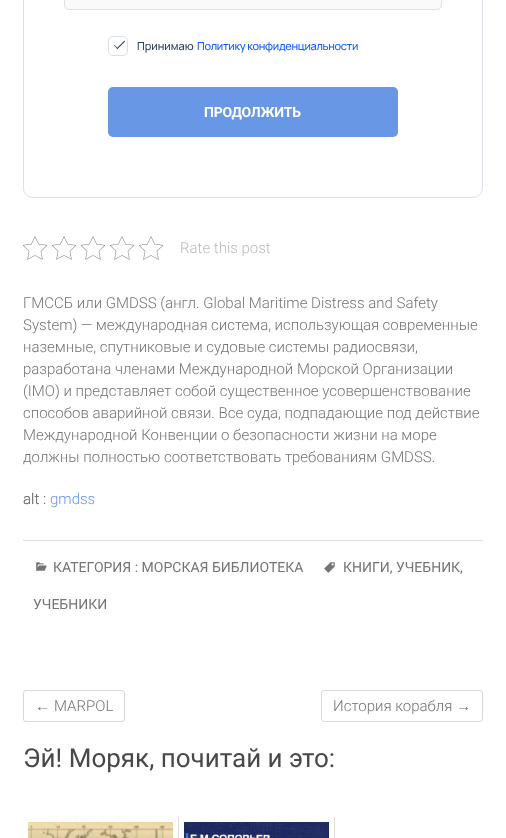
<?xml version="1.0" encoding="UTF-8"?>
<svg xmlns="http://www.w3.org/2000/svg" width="506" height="838">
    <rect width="100%" height="100%" fill="#FFFFFF"/>
    <rect x="23.5" y="-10.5" width="459" height="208" rx="9.5" fill="none" stroke="#DCE0E7"/>
    <rect x="64.5" y="-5.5" width="377" height="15" rx="4.5" fill="#FAFAFA" stroke="#E1E1E1"/>
    <rect x="108.5" y="36.5" width="19" height="19" rx="4.5" fill="none" stroke="#DCE0E7"/>
    <path d="M 116.5 48.5 L 124.5 40.5 L 125 41.5 L 117.5 49 Z" fill="#2C3F57"/>
    <path d="M 114 45.5 L 114.5 45 L 118 48.5 L 117.5 49 Z" fill="#2C3F57"/>
    <text x="137" y="50" font-family="Manrope" font-size="11" font-weight="200" fill="#2C3F57">Принимаю</text>
    <text x="197" y="50" font-family="Manrope" font-size="11" font-weight="200" letter-spacing="-0.3" fill="#0F61FE">Политику конфиденциальности</text>
    <rect x="108" y="87" width="290" height="50" rx="5" fill="#6897E5"/>
    <text x="204" y="117" font-family="Roboto" font-size="14" font-weight="700" letter-spacing="-0.25" fill="#FFFFFF">ПРОДОЛЖИТЬ</text>
    <image x="23" y="236" width="24" height="24" href="img_01.png"/>
    <image x="52" y="236" width="24" height="24" href="img_01.png"/>
    <image x="81" y="236" width="24" height="24" href="img_01.png"/>
    <image x="110" y="236" width="24" height="24" href="img_01.png"/>
    <image x="139" y="236" width="24" height="24" href="img_01.png"/>
    <text x="180" y="253" font-family="Roboto" font-size="15" font-weight="300" fill="#BABABA">Rate this post</text>
    <text font-family="Roboto" font-size="15" font-weight="300" fill="#747474">
        <tspan x="23" y="308">ГМССБ или GMDSS (англ. Global Maritime Distress and Safety</tspan>
        <tspan x="23" y="330" word-spacing="-0.25">System) — международная система, использующая современные</tspan>
        <tspan x="23" y="352">наземные, спутниковые и судовые системы радиосвязи,</tspan>
        <tspan x="23" y="374">разработана членами Международной Морской Организации</tspan>
        <tspan x="23" y="396">(IMO) и представляет собой существенное усовершенствование</tspan>
        <tspan x="23" y="418">способов аварийной связи. Все суда, подпадающие под действие</tspan>
        <tspan x="23" y="440">Международной Конвенции о безопасности жизни на море</tspan>
        <tspan x="23" y="462">должны полностью соответствовать требованиям GMDSS.</tspan>
    </text>
    <image x="23" y="493" width="23" height="11" href="img_02.png"/>
    <text x="23" y="504" font-family="Roboto" font-size="15" font-weight="300" fill="#747474">alt :</text>
    <text x="50" y="504" font-family="Roboto" font-size="15" font-weight="300" fill="#6897E5">gmdss</text>
    <rect x="23" y="540" width="460" height="1" fill="#DDDDDD"/>
    <text x="53" y="572" font-family="Roboto" font-size="14" fill="#747474">КАТЕГОРИЯ : МОРСКАЯ БИБЛИОТЕКА</text>
    <image x="324" y="562" width="11" height="11" href="img_03.png"/>
    <text x="343" y="572" font-family="Roboto" font-size="14" fill="#747474">КНИГИ, УЧЕБНИК,</text>
    <text x="33" y="609" font-family="Roboto" font-size="14" fill="#747474">УЧЕБНИКИ</text>
    <image x="36" y="562" width="11" height="9" href="img_04.png"/>
    <rect x="23.5" y="690.5" width="101" height="31" rx="2.5" fill="none" stroke="#D9D9D9"/>
    <text x="35" y="711" font-family="Liberation Sans" font-size="15" fill="#747474">←</text>
    <text x="54" y="711" font-family="Roboto" font-size="15" font-weight="300" fill="#747474">MARPOL</text>
    <rect x="321.5" y="690.5" width="161" height="31" rx="2.5" fill="none" stroke="#D9D9D9"/>
    <text x="333" y="711" font-family="Roboto" font-size="15" font-weight="300" fill="#747474">История корабля</text>
    <text x="456" y="711" font-family="Liberation Sans" font-size="15" fill="#747474">→</text>
    <text x="23" y="767" font-family="Roboto" font-size="26" fill="#484848">Эй! Моряк, почитай и это:</text>
    <rect x="178" y="817" width="1" height="21" fill="#DDDDDD"/>
    <image x="28" y="822" width="145" height="16" href="img_05.png"/>
    <rect x="334" y="817" width="1" height="21" fill="#DDDDDD"/>
    <image x="184" y="822" width="145" height="16" href="img_06.png"/>
</svg>
